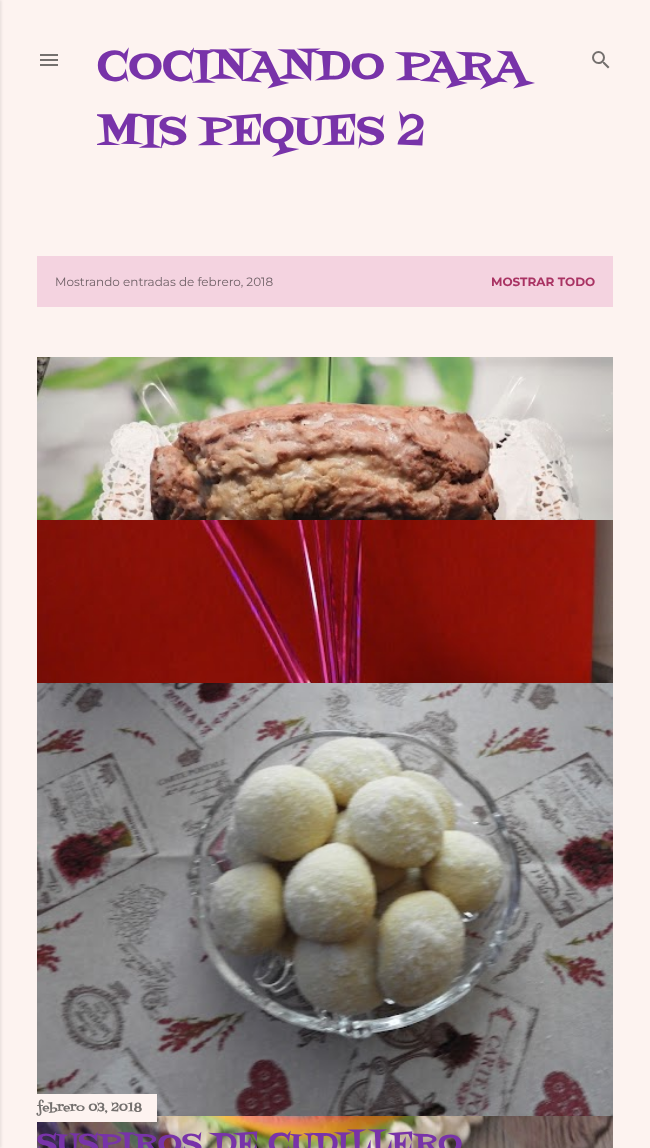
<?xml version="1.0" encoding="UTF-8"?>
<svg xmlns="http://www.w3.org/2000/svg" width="650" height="1148">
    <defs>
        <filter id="blur1" x="-50%" y="-200%" width="200%" height="500%"><feGaussianBlur stdDeviation="1.5"/></filter>
        <clipPath id="clip1"><rect x="97" y="36" width="456" height="146"/></clipPath>
    </defs>
    <rect width="100%" height="100%" fill="#FDF3F0"/>
    <rect x="-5" y="0" width="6" height="1148" fill="#000000" fill-opacity="0.1" filter="url(#blur1)"/>
    <image x="40" y="54" width="18" height="12" href="img_01.png"/>
    <text x="97" y="79" font-family="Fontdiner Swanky" font-size="42" fill="#7833A9">COCINANDO PARA</text>
    <g clip-path="url(#clip1)">
        <text x="97" y="144" font-family="Fontdiner Swanky" font-size="42" fill="#7833A9">MIS PEQUES 2</text>
    </g>
    <image x="592" y="51" width="18" height="18" href="img_02.png"/>
    <rect x="37" y="256" width="576" height="51" fill="#F4D3E0"/>
    <text x="55" y="286" font-family="Montserrat" font-size="12" fill="#706167">Mostrando entradas de febrero, 2018</text>
    <text x="491" y="286" font-family="Montserrat" font-size="12" font-weight="700" fill="#A93363">MOSTRAR TODO</text>
    <image x="37" y="357" width="576" height="163" href="img_03.png"/>
    <image x="37" y="520" width="576" height="628" href="img_04.png"/>
    <image x="37" y="683" width="576" height="433" href="img_05.png"/>
    <rect x="37" y="1094" width="120" height="28" fill="#FDF3F0"/>
    <text x="37" y="1111" font-family="Fontdiner Swanky" font-size="12" fill="#74706E">febrero 03, 2018</text>
    <text x="37" y="1153" font-family="Fontdiner Swanky" font-size="30" fill="#7833A9">SUSPIROS DE CUDILLERO</text>
</svg>
